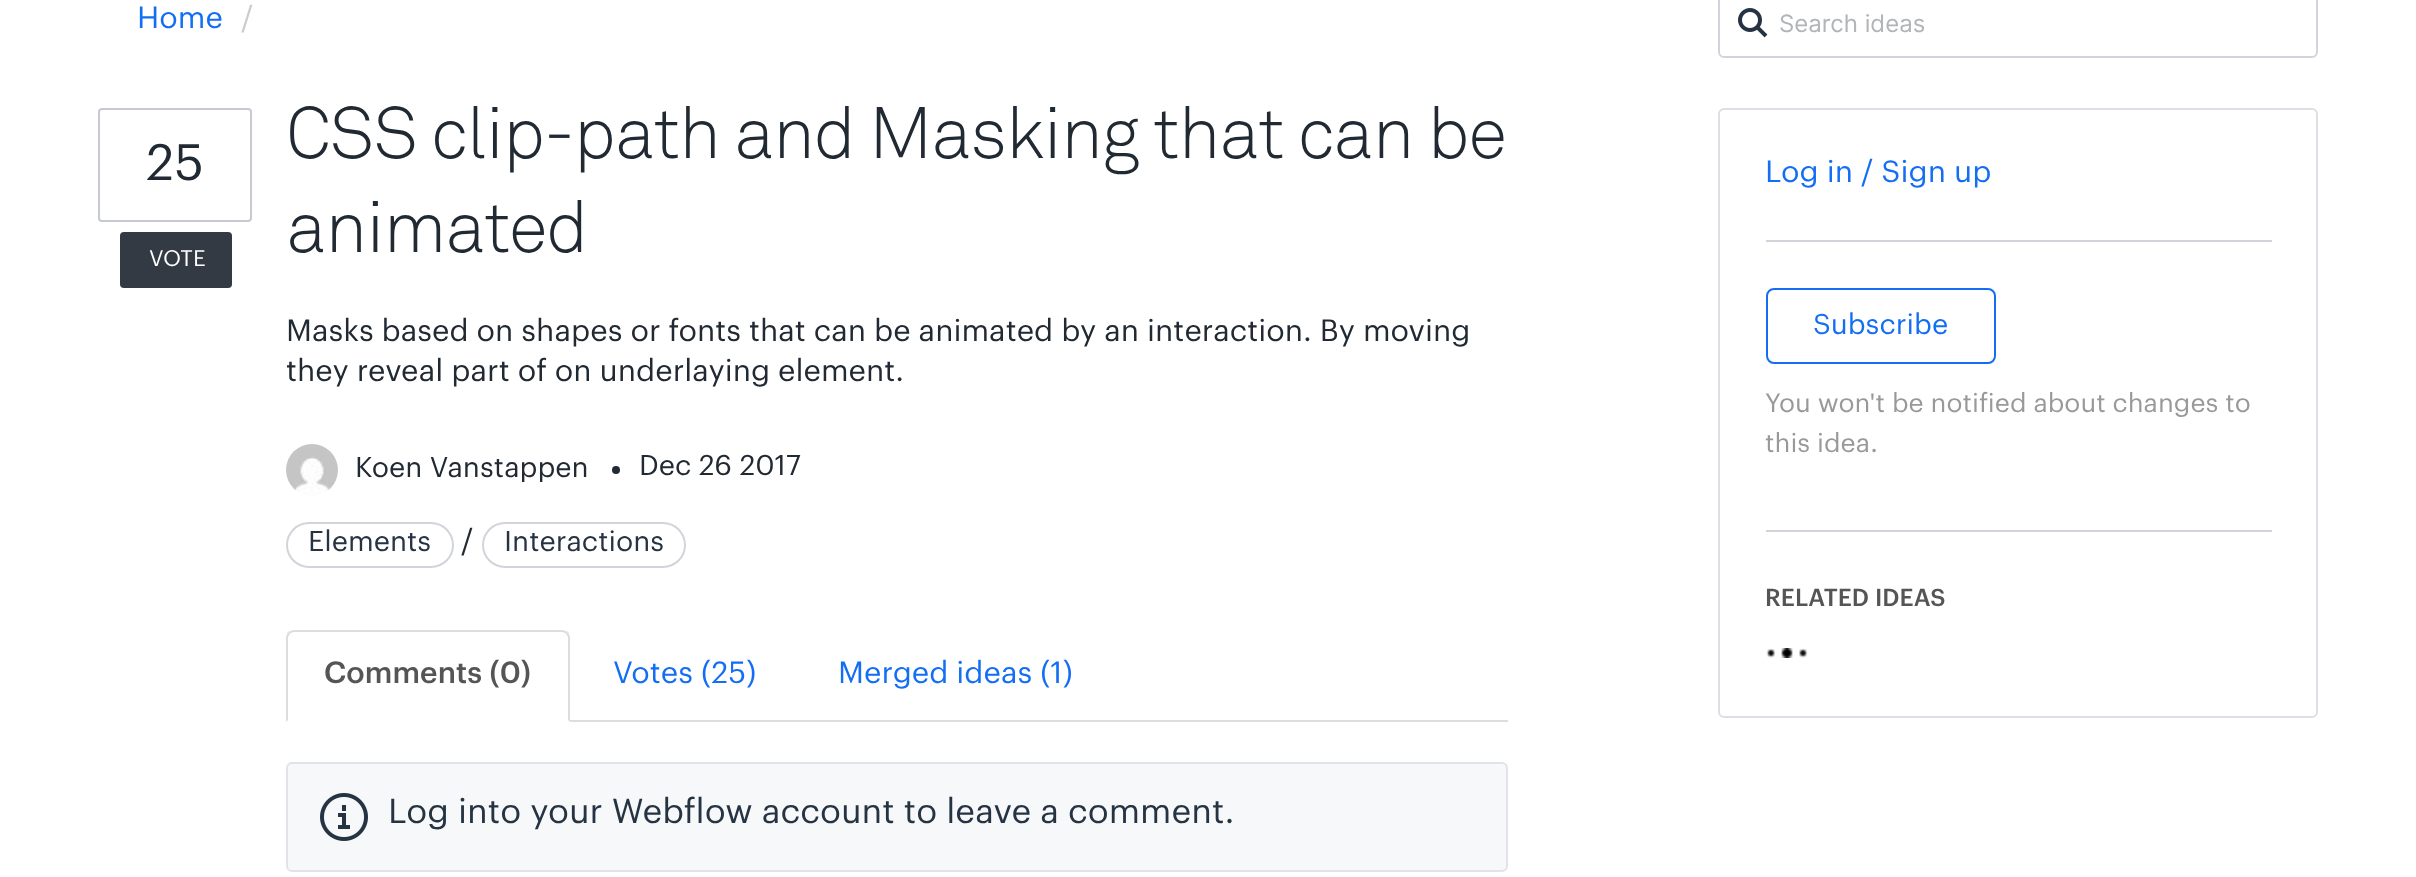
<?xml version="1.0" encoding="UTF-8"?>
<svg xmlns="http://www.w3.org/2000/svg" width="2416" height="877">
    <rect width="100%" height="100%" fill="#FFFFFF"/>
    <text x="137" y="28" font-family="Graphik" font-size="30" fill="#146EF4">Home</text>
    <text x="241" y="28" font-family="Graphik" font-size="30" fill="#CCCCCC">/</text>
    <rect x="1719" y="-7" width="598" height="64" rx="5" fill="none" stroke="#D2D4DB" stroke-width="2"/>
    <image x="1738" y="8" width="30" height="30" href="img_01.png"/>
    <text x="1779" y="32" font-family="Inter" font-size="24" fill="#B1B4B8">Search ideas</text>
    <rect x="99" y="109" width="152" height="112" rx="3" fill="none" stroke="#C7CAD2" stroke-width="2"/>
    <text x="146" y="180" font-family="Graphik" font-size="50" fill="#212933">25</text>
    <rect x="120" y="232" width="112" height="56" rx="4" fill="#333A43"/>
    <text x="149" y="266" font-family="Graphik" font-size="22" fill="#FFFFFF">VOTE</text>
    <text font-family="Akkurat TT" font-size="72" font-weight="300" letter-spacing="-1.2" fill="#212933">
        <tspan x="286" y="158">CSS clip-path and Masking that can be</tspan>
        <tspan x="286" y="252">animated</tspan>
    </text>
    <text font-family="Graphik" font-size="30" fill="#212933">
        <tspan x="286" y="341">Masks based on shapes or fonts that can be animated by an interaction. By moving</tspan>
        <tspan x="286" y="381">they reveal part of on underlaying element.</tspan>
    </text>
    <image x="286" y="444" width="52" height="52" href="img_02.png"/>
    <text x="355" y="477" font-family="Graphik" font-size="28" fill="#212933">Koen Vanstappen</text>
    <circle cx="616" cy="470" r="4" fill="#212933"/>
    <text x="639" y="475" font-family="Graphik" font-size="28" fill="#212933">Dec 26 2017</text>
    <rect x="287" y="523" width="166" height="44" rx="22" fill="none" stroke="#D2D4DB" stroke-width="2"/>
    <text x="308" y="551" font-family="Graphik" font-size="28" fill="#253343">Elements</text>
    <text x="461" y="551" font-family="Graphik" font-size="30" fill="#212933">/</text>
    <rect x="483" y="523" width="202" height="44" rx="22" fill="none" stroke="#D2D4DB" stroke-width="2"/>
    <text x="504" y="551" font-family="Graphik" font-size="28" fill="#253343">Interactions</text>
    <rect x="570" y="720" width="938" height="2" fill="#DDDDDD"/>
    <path d="M 294 630 C 292 630 290 631 288 632 L 290 634 C 291 633 292 632 294 632 H 562 C 564 632 565 633 566 634 L 568 632 C 566 631 564 630 562 630 Z" fill="#DDDDDD"/>
    <path d="M 570 722 V 638 C 570 636 569 634 568 632 L 566 634 L 568 637 V 720 Z" fill="#DDDDDD"/>
    <path d="M 286 722 L 288 720 V 637 L 290 634 L 288 632 C 287 634 286 636 286 638 Z" fill="#DDDDDD"/>
    <text x="324" y="683" font-family="Graphik" font-size="30" font-weight="500" fill="#555555">Comments (0)</text>
    <text x="613" y="683" font-family="Graphik" font-size="30" fill="#146EF4">Votes (25)</text>
    <text x="838" y="683" font-family="Graphik" font-size="30" fill="#146EF4">Merged ideas (1)</text>
    <rect x="287" y="763" width="1220" height="108" rx="5" fill="#F7F8FA" stroke="#E1E3E8" stroke-width="2"/>
    <image x="320" y="793" width="48" height="48" href="img_03.png"/>
    <text x="388" y="823" font-family="Graphik" font-size="34" fill="#253343">Log into your Webflow account to leave a comment.</text>
    <rect x="1719" y="109" width="598" height="608" rx="5" fill="none" stroke="#DDDFE4" stroke-width="2"/>
    <rect x="1766" y="240" width="506" height="2" fill="#D2D4DB"/>
    <text x="1765" y="182" font-family="Graphik" font-size="30" fill="#146EF4">Log in / Sign up</text>
    <rect x="1766" y="530" width="506" height="2" fill="#D2D4DB"/>
    <rect x="1767" y="289" width="228" height="74" rx="7" fill="none" stroke="#146EF4" stroke-width="2"/>
    <text x="1813" y="334" font-family="Graphik" font-size="28" fill="#146EF4">Subscribe</text>
    <text font-family="Graphik" font-size="26" fill="#999999">
        <tspan x="1765" y="412">You won't be notified about changes to</tspan>
        <tspan x="1765" y="452">this idea.</tspan>
    </text>
    <text x="1765" y="606" font-family="Graphik" font-size="24" font-weight="500" fill="#555555">RELATED IDEAS</text>
    <image x="1766" y="648" width="42" height="10" href="img_04.png"/>
</svg>
